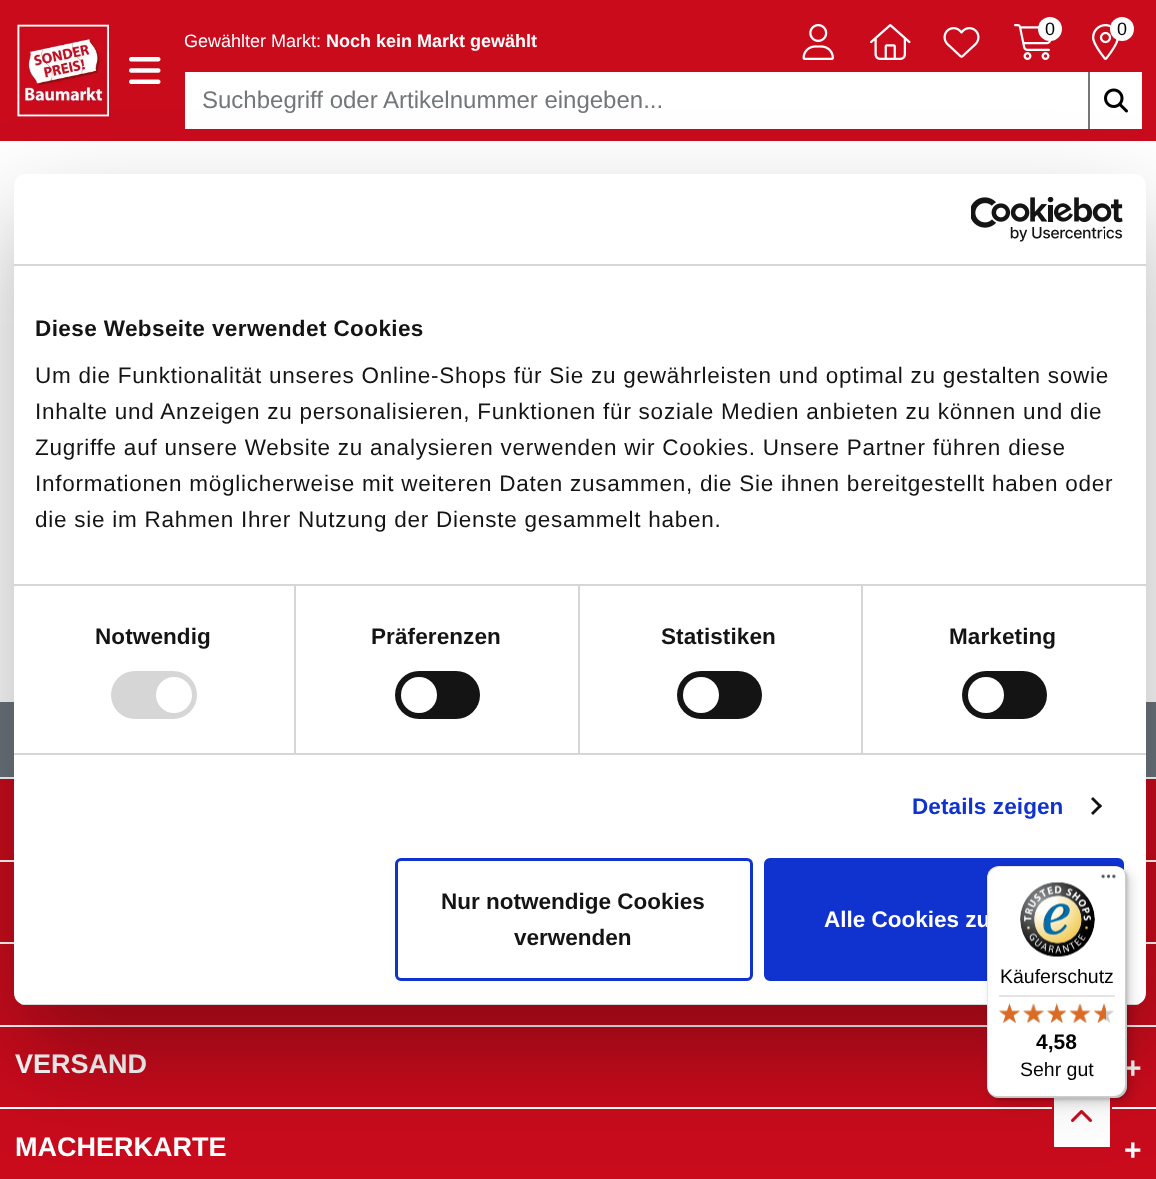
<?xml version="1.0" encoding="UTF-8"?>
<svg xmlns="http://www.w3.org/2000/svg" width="1156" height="1179">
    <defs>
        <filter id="blur1" x="-50%" y="-200%" width="200%" height="500%"><feGaussianBlur stdDeviation="51"/></filter>
        <clipPath id="clip1"><rect x="14" y="174" width="1132" height="831" rx="12"/></clipPath>
        <filter id="blur2" x="-50%" y="-200%" width="200%" height="500%"><feGaussianBlur stdDeviation="6"/></filter>
        <filter id="blur3" x="-50%" y="-200%" width="200%" height="500%"><feGaussianBlur stdDeviation="1.5"/></filter>
    </defs>
    <rect width="100%" height="100%" fill="#FFFFFF"/>
    <rect x="0" y="0" width="1156" height="141" fill="#C90B1C"/>
    <image x="17" y="24" width="92" height="93" href="img_01.png"/>
    <image x="129" y="57" width="32" height="27" href="img_02.png"/>
    <image x="802" y="24" width="32" height="36" href="img_03.png"/>
    <image x="870" y="24" width="41" height="36" href="img_04.png"/>
    <image x="943" y="27" width="37" height="31" href="img_05.png"/>
    <image x="1014" y="24" width="38" height="36" href="img_06.png"/>
    <circle cx="1050" cy="29" r="12" fill="#FFFFFF"/>
    <text x="1045" y="35" font-family="Liberation Sans" font-size="18" fill="#000000">0</text>
    <image x="1092" y="24" width="27" height="36" href="img_07.png"/>
    <circle cx="1122" cy="29" r="12" fill="#FFFFFF"/>
    <text x="1117" y="35" font-family="Liberation Sans" font-size="18" fill="#000000">0</text>
    <text x="184" y="47" font-family="Liberation Sans" font-size="18" fill="#FFFFFF">Gewählter Markt:</text>
    <text x="326" y="47" font-family="Liberation Sans" font-size="18" font-weight="700" fill="#FFFFFF">Noch kein Markt gewählt</text>
    <rect x="185" y="72" width="957" height="57" fill="#FFFFFF"/>
    <text x="202" y="108" font-family="Liberation Sans" font-size="24" fill="#737779">Suchbegriff oder Artikelnummer eingeben...</text>
    <rect x="1088" y="72" width="2" height="57" fill="#737779"/>
    <image x="1104" y="88" width="24" height="25" href="img_08.png"/>
    <rect x="0" y="779" width="1156" height="400" fill="#C90B1C"/>
    <rect x="0" y="702" width="1156" height="75" fill="#6C757D"/>
    <rect x="0" y="860" width="1156" height="2" fill="#FFFFFF"/>
    <rect x="0" y="942" width="1156" height="2" fill="#FFFFFF"/>
    <rect x="0" y="1025" width="1156" height="2" fill="#FFFFFF"/>
    <text x="15" y="1073" font-family="Liberation Sans" font-size="27" font-weight="700" fill="#FFFFFF">VERSAND</text>
    <text x="1124" y="1078" font-family="Liberation Sans" font-size="30" font-weight="700" fill="#FFFFFF">+</text>
    <rect x="0" y="1107" width="1156" height="2" fill="#FFFFFF"/>
    <text x="15" y="1156" font-family="Liberation Sans" font-size="27" font-weight="700" fill="#FFFFFF">MACHERKARTE</text>
    <text x="1124" y="1160" font-family="Liberation Sans" font-size="30" font-weight="700" fill="#FFFFFF">+</text>
    <rect x="1054" y="1098" width="56" height="49" fill="#FFFFFF"/>
    <rect x="1053" y="1090" width="58" height="58" fill="none" stroke="#C90B1C" stroke-width="2"/>
    <image x="1071" y="1110" width="21" height="12" href="img_09.png"/>
    <rect x="14" y="222" width="1132" height="831" rx="12" fill="#000000" fill-opacity="0.3" filter="url(#blur1)"/>
    <rect x="14" y="174" width="1132" height="831" rx="12" fill="#FFFFFF"/>
    <rect x="14" y="264" width="1132" height="2" fill="#D6D6D6"/>
    <image x="971" y="197" width="152" height="45" href="img_10.png"/>
    <rect x="294" y="585" width="2" height="168" fill="#D6D6D6"/>
    <rect x="578" y="585" width="2" height="168" fill="#D6D6D6"/>
    <rect x="861" y="585" width="2" height="168" fill="#D6D6D6"/>
    <rect x="14" y="584" width="1132" height="2" fill="#D6D6D6"/>
    <text x="35" y="336" font-family="Liberation Sans" font-size="22.5" font-weight="700" letter-spacing="0.4" fill="#141414">Diese Webseite verwendet Cookies</text>
    <text font-family="Liberation Sans" font-size="22.5" letter-spacing="0.75" fill="#141414">
        <tspan x="35" y="383">Um die Funktionalität unseres Online-Shops für Sie zu gewährleisten und optimal zu gestalten sowie</tspan>
        <tspan x="35" y="419">Inhalte und Anzeigen zu personalisieren, Funktionen für soziale Medien anbieten zu können und die</tspan>
        <tspan x="35" y="455">Zugriffe auf unsere Website zu analysieren verwenden wir Cookies. Unsere Partner führen diese</tspan>
        <tspan x="35" y="491">Informationen möglicherweise mit weiteren Daten zusammen, die Sie ihnen bereitgestellt haben oder</tspan>
        <tspan x="35" y="527">die sie im Rahmen Ihrer Nutzung der Dienste gesammelt haben.</tspan>
    </text>
    <rect x="14" y="753" width="1132" height="2" fill="#D6D6D6"/>
    <text x="95" y="644" font-family="Liberation Sans" font-size="22.5" font-weight="700" letter-spacing="0.1" fill="#141414">Notwendig</text>
    <rect x="111" y="671" width="86" height="48" rx="24" fill="#D6D6D6"/>
    <circle cx="174" cy="695" r="18" fill="#FFFFFF"/>
    <text x="371" y="644" font-family="Liberation Sans" font-size="22.5" font-weight="700" letter-spacing="0.1" fill="#141414">Präferenzen</text>
    <rect x="395" y="671" width="85" height="48" rx="24" fill="#141414"/>
    <circle cx="419" cy="695" r="18" fill="#FFFFFF"/>
    <text x="661" y="644" font-family="Liberation Sans" font-size="22.5" font-weight="700" letter-spacing="0.1" fill="#141414">Statistiken</text>
    <rect x="677" y="671" width="85" height="48" rx="24" fill="#141414"/>
    <circle cx="701" cy="695" r="18" fill="#FFFFFF"/>
    <text x="949" y="644" font-family="Liberation Sans" font-size="22.5" font-weight="700" letter-spacing="0.1" fill="#141414">Marketing</text>
    <rect x="962" y="671" width="85" height="48" rx="24" fill="#141414"/>
    <circle cx="986" cy="695" r="18" fill="#FFFFFF"/>
    <text x="912" y="814" font-family="Liberation Sans" font-size="22.5" font-weight="700" letter-spacing="0.1" fill="#1032CF">Details zeigen</text>
    <path d="M 1093 797 L 1102 806 L 1100 808 L 1091 799 Z" fill="#141414"/>
    <path d="M 1100 804 L 1102 806 L 1093 815 L 1091 813 Z" fill="#141414"/>
    <g clip-path="url(#clip1)">
        <rect x="14" y="1004" width="1132" height="1" fill="#D6D6D6"/>
    </g>
    <rect x="396.5" y="859.5" width="355" height="120" rx="4.5" fill="none" stroke="#1032CF" stroke-width="3"/>
    <text x="441" y="909" font-family="Liberation Sans" font-size="22.5" font-weight="700" fill="#141414">Nur notwendige Cookies</text>
    <text x="514" y="945" font-family="Liberation Sans" font-size="22.5" font-weight="700" fill="#141414">verwenden</text>
    <rect x="765.5" y="859.5" width="357" height="120" rx="4.5" fill="#1032CF" stroke="#1032CF" stroke-width="3"/>
    <text x="824" y="927" font-family="Liberation Sans" font-size="22.5" font-weight="700" fill="#FFFFFF">Alle Cookies zu</text>
    <rect x="992" y="870" width="139" height="233" rx="12" fill="#000000" fill-opacity="0.15" filter="url(#blur2)"/>
    <rect x="989" y="867" width="139" height="233" rx="12" fill="#000000" fill-opacity="0.15" filter="url(#blur3)"/>
    <rect x="987" y="866" width="140" height="232" rx="12" fill="#FFFFFF"/>
    <path d="M 1000 867 H 1116 C 1119 867 1121 868 1123 869 C 1121 867 1118 866 1115 866 H 999 C 992 866 987 871 987 878 V 1086 C 987 1089 988 1091 990 1093 C 989 1092 988 1090 988 1088 V 879 C 988 872 994 867 1000 867 Z" fill="#000000" fill-opacity="0.1"/>
    <path d="M 988 1091 C 990 1095 994 1098 999 1098 H 1115 C 1122 1098 1127 1093 1127 1086 V 878 C 1127 874 1125 871 1123 869 C 1124 871 1125 873 1125 876 V 1084 C 1125 1091 1120 1096 1113 1096 H 998 C 994 1096 990 1094 988 1091 Z" fill="#000000" fill-opacity="0.2"/>
    <path d="M 991 1095 C 993 1097 996 1098 999 1098 H 1115 C 1122 1098 1127 1093 1127 1086 V 878 C 1127 874 1125 871 1123 869 C 1125 871 1126 874 1126 877 V 1085 C 1126 1092 1120 1097 1114 1097 H 998 C 995 1097 993 1096 991 1095 Z" fill="#323232" fill-opacity="0.2"/>
    <path d="M 990 1094 C 992 1096 995 1098 999 1098 H 1115 C 1122 1098 1127 1093 1127 1086 V 878 C 1127 874 1125 871 1123 869 C 1125 871 1126 874 1126 877 V 1085 C 1126 1092 1120 1097 1114 1097 H 998 C 995 1097 992 1096 990 1094 Z" fill="#FFFFFF" fill-opacity="0.3"/>
    <image x="1101" y="874" width="15" height="5" href="img_11.png"/>
    <image x="1020" y="882" width="75" height="75" href="img_12.png"/>
    <text x="1000" y="983" font-family="Liberation Sans" font-size="19.5" fill="#000000">Käuferschutz</text>
    <rect x="999" y="995" width="116" height="2" fill="#E5E5E5"/>
    <image x="999" y="1003" width="21" height="20" href="img_13.png"/>
    <image x="1023" y="1004" width="21" height="19" href="img_14.png"/>
    <image x="1047" y="1003" width="19" height="20" href="img_15.png"/>
    <image x="1070" y="1004" width="20" height="19" href="img_16.png"/>
    <image x="1094" y="1003" width="20" height="20" href="img_17.png"/>
    <image x="999" y="1003" width="21" height="20" href="img_18.png"/>
    <image x="1023" y="1003" width="21" height="20" href="img_19.png"/>
    <image x="1047" y="1003" width="19" height="20" href="img_20.png"/>
    <image x="1069" y="1003" width="22" height="20" href="img_21.png"/>
    <image x="1094" y="1003" width="12" height="20" href="img_22.png"/>
    <text x="1036" y="1049" font-family="Liberation Sans" font-size="21" font-weight="700" fill="#000000">4,58</text>
    <text x="1020" y="1076" font-family="Liberation Sans" font-size="19.5" fill="#000000">Sehr gut</text>
</svg>
